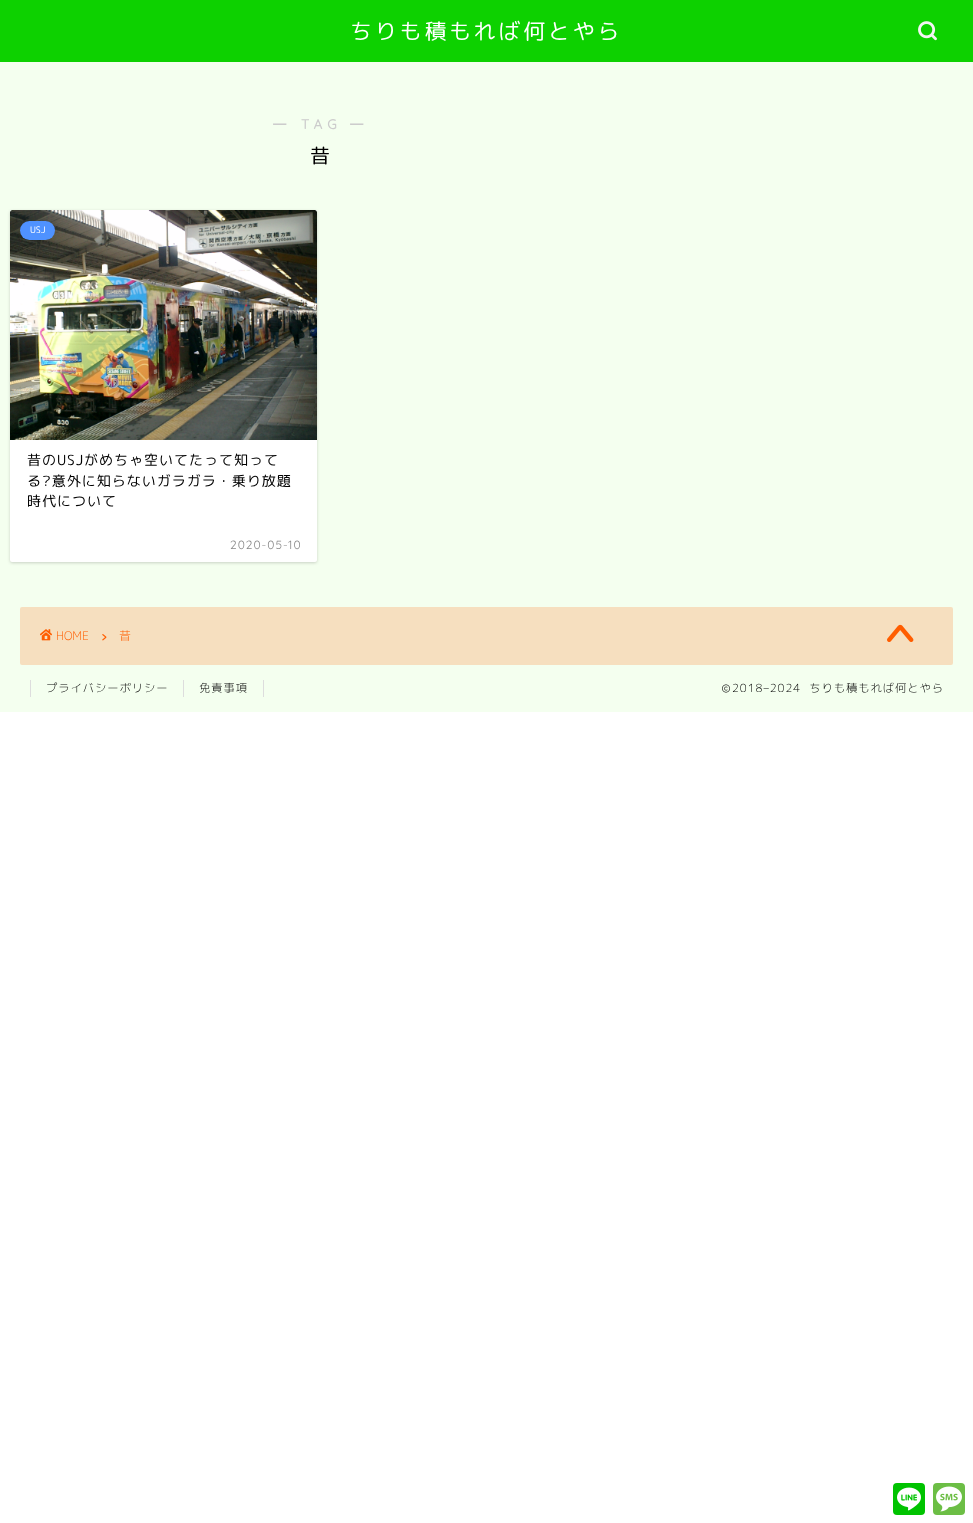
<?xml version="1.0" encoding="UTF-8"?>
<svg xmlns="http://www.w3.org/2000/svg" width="973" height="1523">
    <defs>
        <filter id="blur1" x="-50%" y="-200%" width="200%" height="500%"><feGaussianBlur stdDeviation="1.5"/></filter>
    </defs>
    <rect width="100%" height="100%" fill="#FFFFFF"/>
    <rect x="0" y="62" width="973" height="650" fill="#F4FFEF"/>
    <rect x="0" y="0" width="973" height="62" fill="#0DD100"/>
    <text x="350" y="39" font-family="'Rounded Mplus 1c'" font-size="21.75" letter-spacing="3" fill="#FFFFFF">ちりも積もれば何とやら</text>
    <image x="918" y="21" width="19" height="20" href="img_01.png"/>
    <text x="273" y="129" font-family="'Rounded Mplus 1c Bold'" font-size="13.5" font-weight="700" letter-spacing="5" fill="#CCCCCC">―</text>
    <text x="301" y="129" font-family="Quicksand" font-size="13.5" font-weight="700" letter-spacing="5" fill="#CCCCCC">TAG</text>
    <text x="350" y="129" font-family="'Rounded Mplus 1c Bold'" font-size="13.5" font-weight="700" letter-spacing="5" fill="#CCCCCC">―</text>
    <text x="310" y="163" font-family="'Rounded Mplus 1c'" font-size="20" letter-spacing="1" fill="#000000">昔</text>
    <rect x="10" y="211" width="307" height="352" rx="2" fill="#000000" fill-opacity="0.18" filter="url(#blur1)"/>
    <rect x="10" y="210" width="307" height="352" rx="2" fill="#FFFFFF"/>
    <image x="10" y="210" width="307" height="230" href="img_02.png"/>
    <rect x="20" y="221" width="35" height="19" rx="9.5" fill="#4F92FF"/>
    <text x="30" y="233" font-family="'Rounded Mplus 1c'" font-size="9" fill="#FFFFFF">USJ</text>
    <text font-family="'Rounded Mplus 1c'" font-size="14" letter-spacing="1" fill="#000000">
        <tspan x="27" y="465">昔のUSJがめちゃ空いてたって知って</tspan>
        <tspan x="27" y="486">る?意外に知らないガラガラ・乗り放題</tspan>
        <tspan x="27" y="506">時代について</tspan>
    </text>
    <text x="230" y="549" font-family="Quicksand" font-size="12" font-weight="300" letter-spacing="1" fill="#888888">2020-05-10</text>
    <rect x="20" y="607" width="933" height="58" rx="2" fill="#F6DFBF"/>
    <image x="40" y="629" width="12" height="12" href="img_03.png"/>
    <text x="56" y="640" font-family="'Rounded Mplus 1c'" font-size="12" font-weight="300" fill="#FF5D00">HOME</text>
    <image x="102" y="634" width="5" height="7" href="img_04.png"/>
    <text x="119" y="640" font-family="'Rounded Mplus 1c'" font-size="12" font-weight="300" fill="#FF5D00">昔</text>
    <image x="887" y="624" width="27" height="18" href="img_05.png"/>
    <rect x="183" y="680" width="1" height="17" fill="#DDDDDD"/>
    <rect x="30" y="680" width="1" height="17" fill="#DDDDDD"/>
    <text x="46" y="692" font-family="'Rounded Mplus 1c'" font-size="11.25" font-weight="300" letter-spacing="1" fill="#000000">プライバシーポリシー</text>
    <rect x="263" y="680" width="1" height="17" fill="#DDDDDD"/>
    <text x="199" y="692" font-family="'Rounded Mplus 1c'" font-size="11.25" font-weight="300" letter-spacing="1" fill="#000000">免責事項</text>
    <image x="722" y="684" width="8" height="9" href="img_06.png"/>
    <text x="732" y="692" font-family="'Rounded Mplus 1c'" font-size="11.25" font-weight="300" letter-spacing="1" fill="#000000" xml:space="preserve">2018–2024  ちりも積もれば何とやら</text>
    <rect x="893" y="1483" width="32" height="32" rx="4" fill="#00C300"/>
    <image x="897" y="1487" width="24" height="24" href="img_07.png"/>
    <rect x="933" y="1483" width="32" height="32" rx="4" fill="#6CBE45"/>
    <image x="936" y="1486" width="26" height="26" href="img_08.png"/>
</svg>
